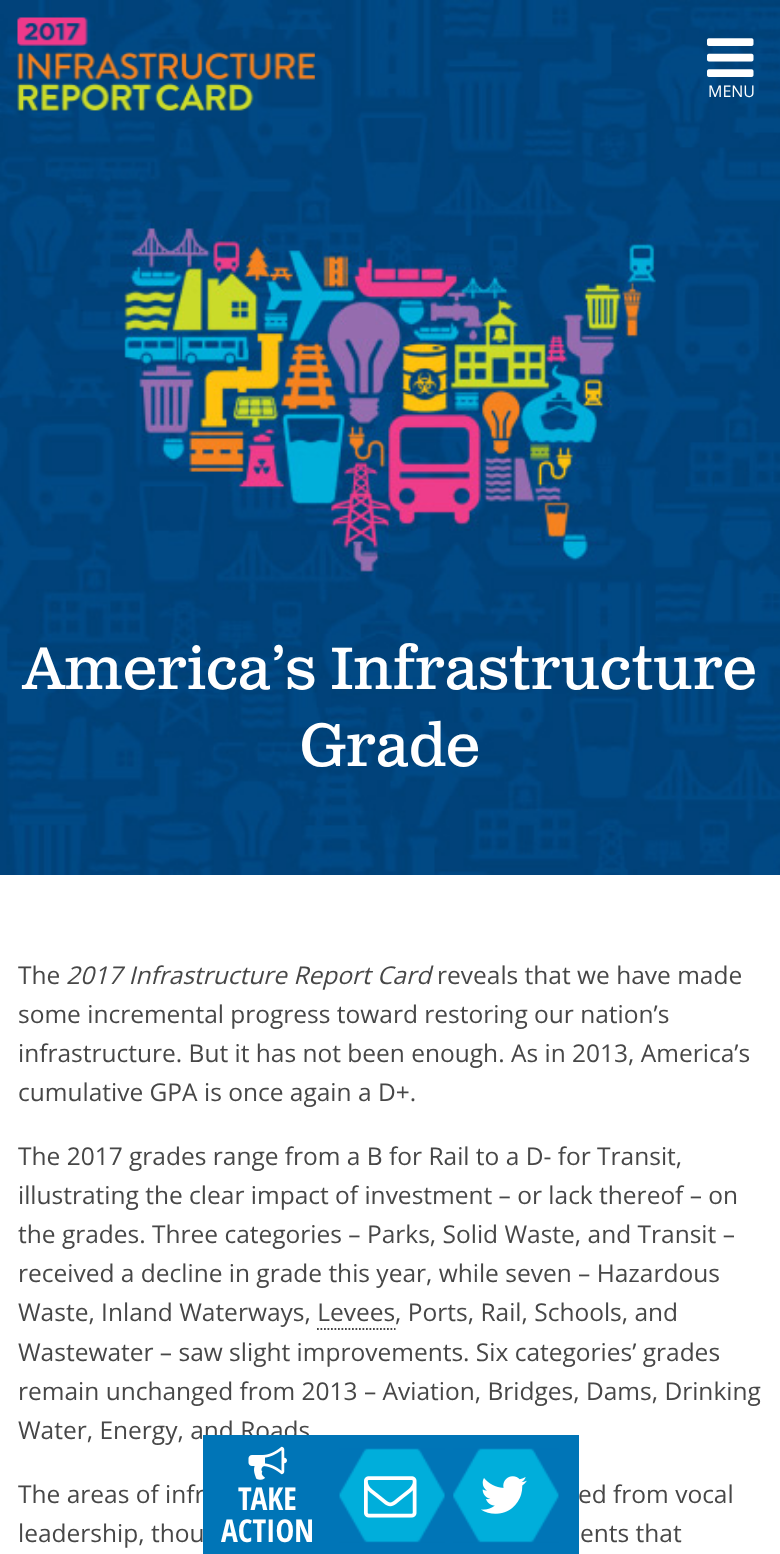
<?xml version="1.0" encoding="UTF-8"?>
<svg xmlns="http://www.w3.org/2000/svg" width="780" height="1554">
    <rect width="100%" height="100%" fill="#FFFFFF"/>
    <image x="0" y="0" width="780" height="875" href="img_03.png"/>
    <image x="17" y="17" width="298" height="94" href="img_01.png"/>
    <image x="707" y="38" width="47" height="39" href="img_02.png"/>
    <text x="708" y="97" font-family="Open Sans" font-size="16" fill="#FFFFFF">MENU</text>
    <text x="23" y="689" font-family="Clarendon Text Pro" font-size="59.5" fill="#FFFFFF">America’s Infrastructure</text>
    <text x="300" y="766" font-family="Clarendon Text Pro" font-size="59.5" fill="#FFFFFF">Grade</text>
    <text x="18" y="984" font-family="Open Sans" font-size="24.5" fill="#474747">The</text>
    <text x="66" y="984" font-family="Open Sans" font-size="24.5" font-style="italic" fill="#474747">2017 Infrastructure Report Card</text>
    <text x="437" y="984" font-family="Open Sans" font-size="24.5" fill="#474747">reveals that we have made</text>
    <text font-family="Open Sans" font-size="24.5" fill="#474747">
        <tspan x="18" y="1023">some incremental progress toward restoring our nation’s</tspan>
        <tspan x="18" y="1062">infrastructure. But it has not been enough. As in 2013, America’s</tspan>
        <tspan x="18" y="1101">cumulative GPA is once again a D+.</tspan>
    </text>
    <text font-family="Open Sans" font-size="24.5" fill="#474747">
        <tspan x="18" y="1165">The 2017 grades range from a B for Rail to a D- for Transit,</tspan>
        <tspan x="18" y="1204">illustrating the clear impact of investment – or lack thereof – on</tspan>
        <tspan x="18" y="1243">the grades. Three categories – Parks, Solid Waste, and Transit –</tspan>
        <tspan x="18" y="1282">received a decline in grade this year, while seven – Hazardous</tspan>
        <tspan x="18" y="1321">Waste, Inland Waterways, Levees, Ports, Rail, Schools, and</tspan>
    </text>
    <path d="M 317 1329 H 395.5" fill="none" stroke="#474747" stroke-width="1.8" stroke-dasharray="1.75 1.75"/>
    <text font-family="Open Sans" font-size="24.5" fill="#474747">
        <tspan x="18" y="1361">Wastewater – saw slight improvements. Six categories’ grades</tspan>
        <tspan x="18" y="1400">remain unchanged from 2013 – Aviation, Bridges, Dams, Drinking</tspan>
        <tspan x="18" y="1439">Water, Energy, and Roads</tspan>
    </text>
    <text x="18" y="1503" font-family="Open Sans" font-size="24.5" fill="#474747">The areas of infr</text>
    <text x="578" y="1503" font-family="Open Sans" font-size="24.5" fill="#474747">ed from vocal</text>
    <text x="18" y="1542" font-family="Open Sans" font-size="24.5" fill="#474747">leadership, thou</text>
    <text x="580" y="1542" font-family="Open Sans" font-size="24.5" fill="#474747">ents that</text>
    <rect x="203" y="1435" width="376" height="119" fill="#0075B7"/>
    <image x="248" y="1446" width="39" height="34" href="img_04.png"/>
    <text x="238" y="1510" font-family="Open Sans Condensed" font-size="31.5" font-weight="700" fill="#FFFFFF">TAKE</text>
    <text x="221" y="1542" font-family="Open Sans Condensed" font-size="31.5" font-weight="700" fill="#FFFFFF">ACTION</text>
    <image x="339" y="1448" width="106" height="95" href="img_05.png"/>
    <image x="364" y="1476" width="53" height="42" href="img_06.png"/>
    <image x="453" y="1448" width="106" height="95" href="img_07.png"/>
    <image x="481" y="1476" width="46" height="38" href="img_08.png"/>
</svg>
